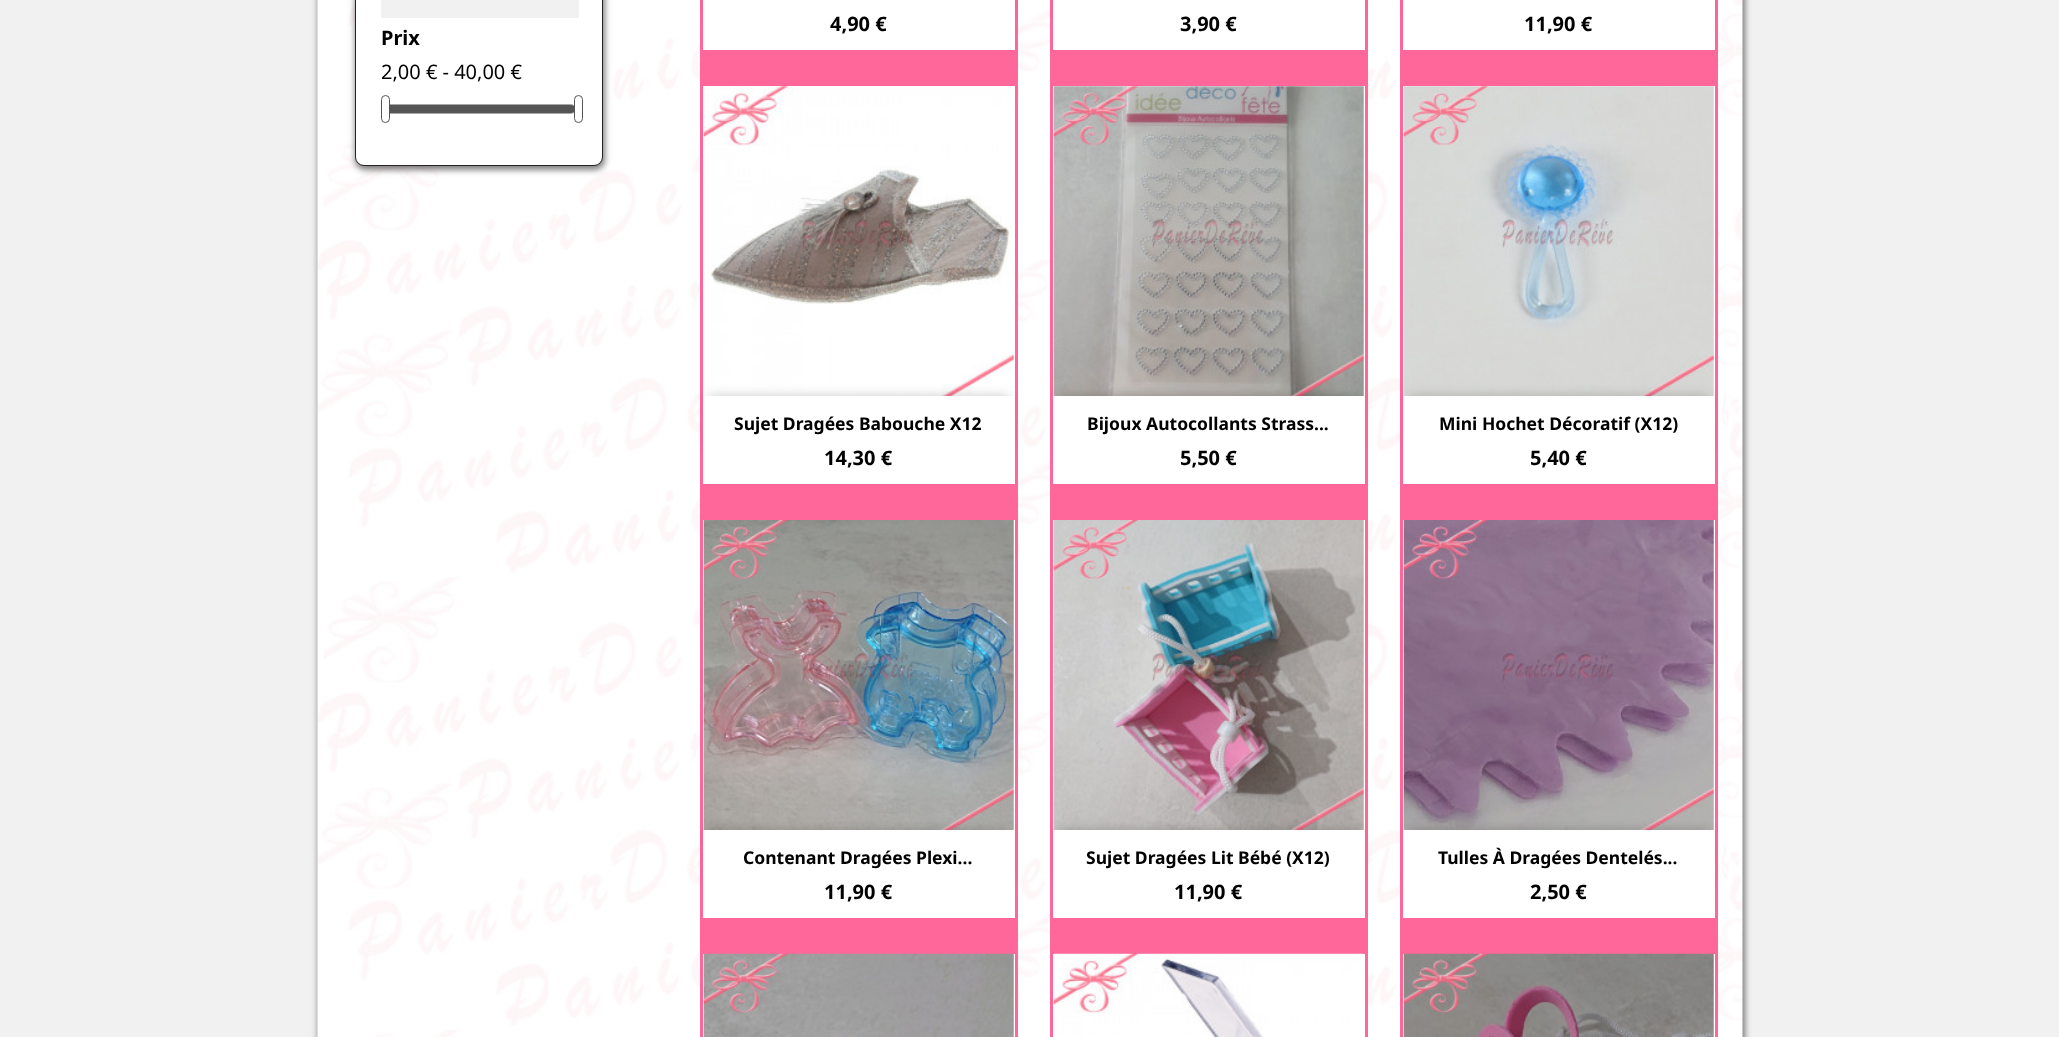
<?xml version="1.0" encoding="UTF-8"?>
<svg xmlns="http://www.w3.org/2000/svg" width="2059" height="1037">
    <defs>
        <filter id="blur1" x="-50%" y="-200%" width="200%" height="500%"><feGaussianBlur stdDeviation="3"/></filter>
        <filter id="blur2" x="-50%" y="-200%" width="200%" height="500%"><feGaussianBlur stdDeviation="0.5"/></filter>
        <filter id="blur3" x="-50%" y="-200%" width="200%" height="500%"><feGaussianBlur stdDeviation="6"/></filter>
    </defs>
    <rect width="100%" height="100%" fill="#F1F1F1"/>
    <rect x="318" y="-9" width="1427" height="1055" fill="#000000" fill-opacity="0.5" filter="url(#blur1)"/>
    <image x="317" y="0" width="1426" height="1037" href="img_01.png"/>
    <rect x="355" y="-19" width="250" height="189" rx="10" fill="#000000" fill-opacity="0.5" filter="url(#blur1)"/>
    <rect x="355.5" y="-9.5" width="247" height="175" rx="8.5" fill="#FFFFFF" stroke="#232323"/>
    <rect x="381" y="-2" width="198" height="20" fill="#F1F1F1" filter="url(#blur2)"/>
    <text x="381" y="45" font-family="Noto Sans" font-size="20" font-weight="700" fill="#000000">Prix</text>
    <text x="381" y="79" font-family="Noto Sans" font-size="20" fill="#000000">2,00 € - 40,00 €</text>
    <rect x="381.5" y="104.5" width="194" height="9" rx="4.5" fill="none" stroke="#AAAAAA"/>
    <rect x="383" y="105" width="192" height="8" rx="4" fill="#555555"/>
    <rect x="381.5" y="95.5" width="8" height="27" rx="4" fill="#FFFFFF" stroke="#555555"/>
    <rect x="574.5" y="95.5" width="8" height="27" rx="4" fill="#FFFFFF" stroke="#555555"/>
    <rect x="700" y="0" width="318" height="1037" fill="#FF6699"/>
    <rect x="709" y="-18" width="300" height="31" fill="#000000" fill-opacity="0.2" filter="url(#blur3)"/>
    <rect x="703" y="0" width="312" height="50" fill="#FFFFFF"/>
    <text x="830" y="31" font-family="Noto Sans" font-size="20" font-weight="700" fill="#000000">4,90 €</text>
    <rect x="1050" y="0" width="318" height="1037" fill="#FF6699"/>
    <rect x="1059" y="-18" width="300" height="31" fill="#000000" fill-opacity="0.2" filter="url(#blur3)"/>
    <rect x="1053" y="0" width="312" height="50" fill="#FFFFFF"/>
    <text x="1180" y="31" font-family="Noto Sans" font-size="20" font-weight="700" fill="#000000">3,90 €</text>
    <rect x="1400" y="0" width="318" height="1037" fill="#FF6699"/>
    <rect x="1409" y="-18" width="300" height="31" fill="#000000" fill-opacity="0.2" filter="url(#blur3)"/>
    <rect x="1403" y="0" width="312" height="50" fill="#FFFFFF"/>
    <text x="1524" y="31" font-family="Noto Sans" font-size="20" font-weight="700" fill="#000000">11,90 €</text>
    <rect x="703" y="86" width="312" height="310" fill="#FFFFFF"/>
    <image x="703" y="86" width="311" height="310" href="img_02.png"/>
    <rect x="709" y="396" width="300" height="50" fill="#000000" fill-opacity="0.2" filter="url(#blur3)"/>
    <rect x="703" y="396" width="312" height="88" fill="#FFFFFF"/>
    <text x="734" y="430" font-family="Noto Sans" font-size="17.5" font-weight="700" fill="#000000">Sujet Dragées Babouche X12</text>
    <text x="824" y="465" font-family="Noto Sans" font-size="20" font-weight="700" fill="#000000">14,30 €</text>
    <rect x="1053" y="86" width="312" height="310" fill="#FFFFFF"/>
    <image x="1053" y="86" width="311" height="310" href="img_03.png"/>
    <rect x="1059" y="396" width="300" height="50" fill="#000000" fill-opacity="0.2" filter="url(#blur3)"/>
    <rect x="1053" y="396" width="312" height="88" fill="#FFFFFF"/>
    <text x="1087" y="430" font-family="Noto Sans" font-size="17.5" font-weight="700" fill="#000000">Bijoux Autocollants Strass...</text>
    <text x="1180" y="465" font-family="Noto Sans" font-size="20" font-weight="700" fill="#000000">5,50 €</text>
    <rect x="1403" y="86" width="312" height="310" fill="#FFFFFF"/>
    <image x="1403" y="86" width="311" height="310" href="img_04.png"/>
    <rect x="1409" y="396" width="300" height="50" fill="#000000" fill-opacity="0.2" filter="url(#blur3)"/>
    <rect x="1403" y="396" width="312" height="88" fill="#FFFFFF"/>
    <text x="1439" y="430" font-family="Noto Sans" font-size="17.5" font-weight="700" fill="#000000">Mini Hochet Décoratif (X12)</text>
    <text x="1530" y="465" font-family="Noto Sans" font-size="20" font-weight="700" fill="#000000">5,40 €</text>
    <rect x="703" y="520" width="312" height="310" fill="#FFFFFF"/>
    <image x="703" y="520" width="311" height="310" href="img_05.png"/>
    <rect x="709" y="830" width="300" height="50" fill="#000000" fill-opacity="0.2" filter="url(#blur3)"/>
    <rect x="703" y="830" width="312" height="88" fill="#FFFFFF"/>
    <text x="743" y="864" font-family="Noto Sans" font-size="17.5" font-weight="700" fill="#000000">Contenant Dragées Plexi...</text>
    <text x="824" y="899" font-family="Noto Sans" font-size="20" font-weight="700" fill="#000000">11,90 €</text>
    <rect x="1053" y="520" width="312" height="310" fill="#FFFFFF"/>
    <image x="1053" y="520" width="311" height="310" href="img_06.png"/>
    <rect x="1059" y="830" width="300" height="50" fill="#000000" fill-opacity="0.2" filter="url(#blur3)"/>
    <rect x="1053" y="830" width="312" height="88" fill="#FFFFFF"/>
    <text x="1086" y="864" font-family="Noto Sans" font-size="17.5" font-weight="700" fill="#000000">Sujet Dragées Lit Bébé (X12)</text>
    <text x="1174" y="899" font-family="Noto Sans" font-size="20" font-weight="700" fill="#000000">11,90 €</text>
    <rect x="1403" y="520" width="312" height="310" fill="#FFFFFF"/>
    <image x="1403" y="520" width="311" height="310" href="img_07.png"/>
    <rect x="1409" y="830" width="300" height="50" fill="#000000" fill-opacity="0.2" filter="url(#blur3)"/>
    <rect x="1403" y="830" width="312" height="88" fill="#FFFFFF"/>
    <text x="1438" y="864" font-family="Noto Sans" font-size="17.5" font-weight="700" fill="#000000">Tulles À Dragées Dentelés...</text>
    <text x="1530" y="899" font-family="Noto Sans" font-size="20" font-weight="700" fill="#000000">2,50 €</text>
    <rect x="703" y="954" width="312" height="83" fill="#FFFFFF"/>
    <image x="703" y="953" width="311" height="84" href="img_08.png"/>
    <rect x="1053" y="954" width="312" height="83" fill="#FFFFFF"/>
    <image x="1053" y="953" width="311" height="84" href="img_09.png"/>
    <rect x="1403" y="954" width="312" height="83" fill="#FFFFFF"/>
    <image x="1403" y="953" width="311" height="84" href="img_10.png"/>
</svg>
